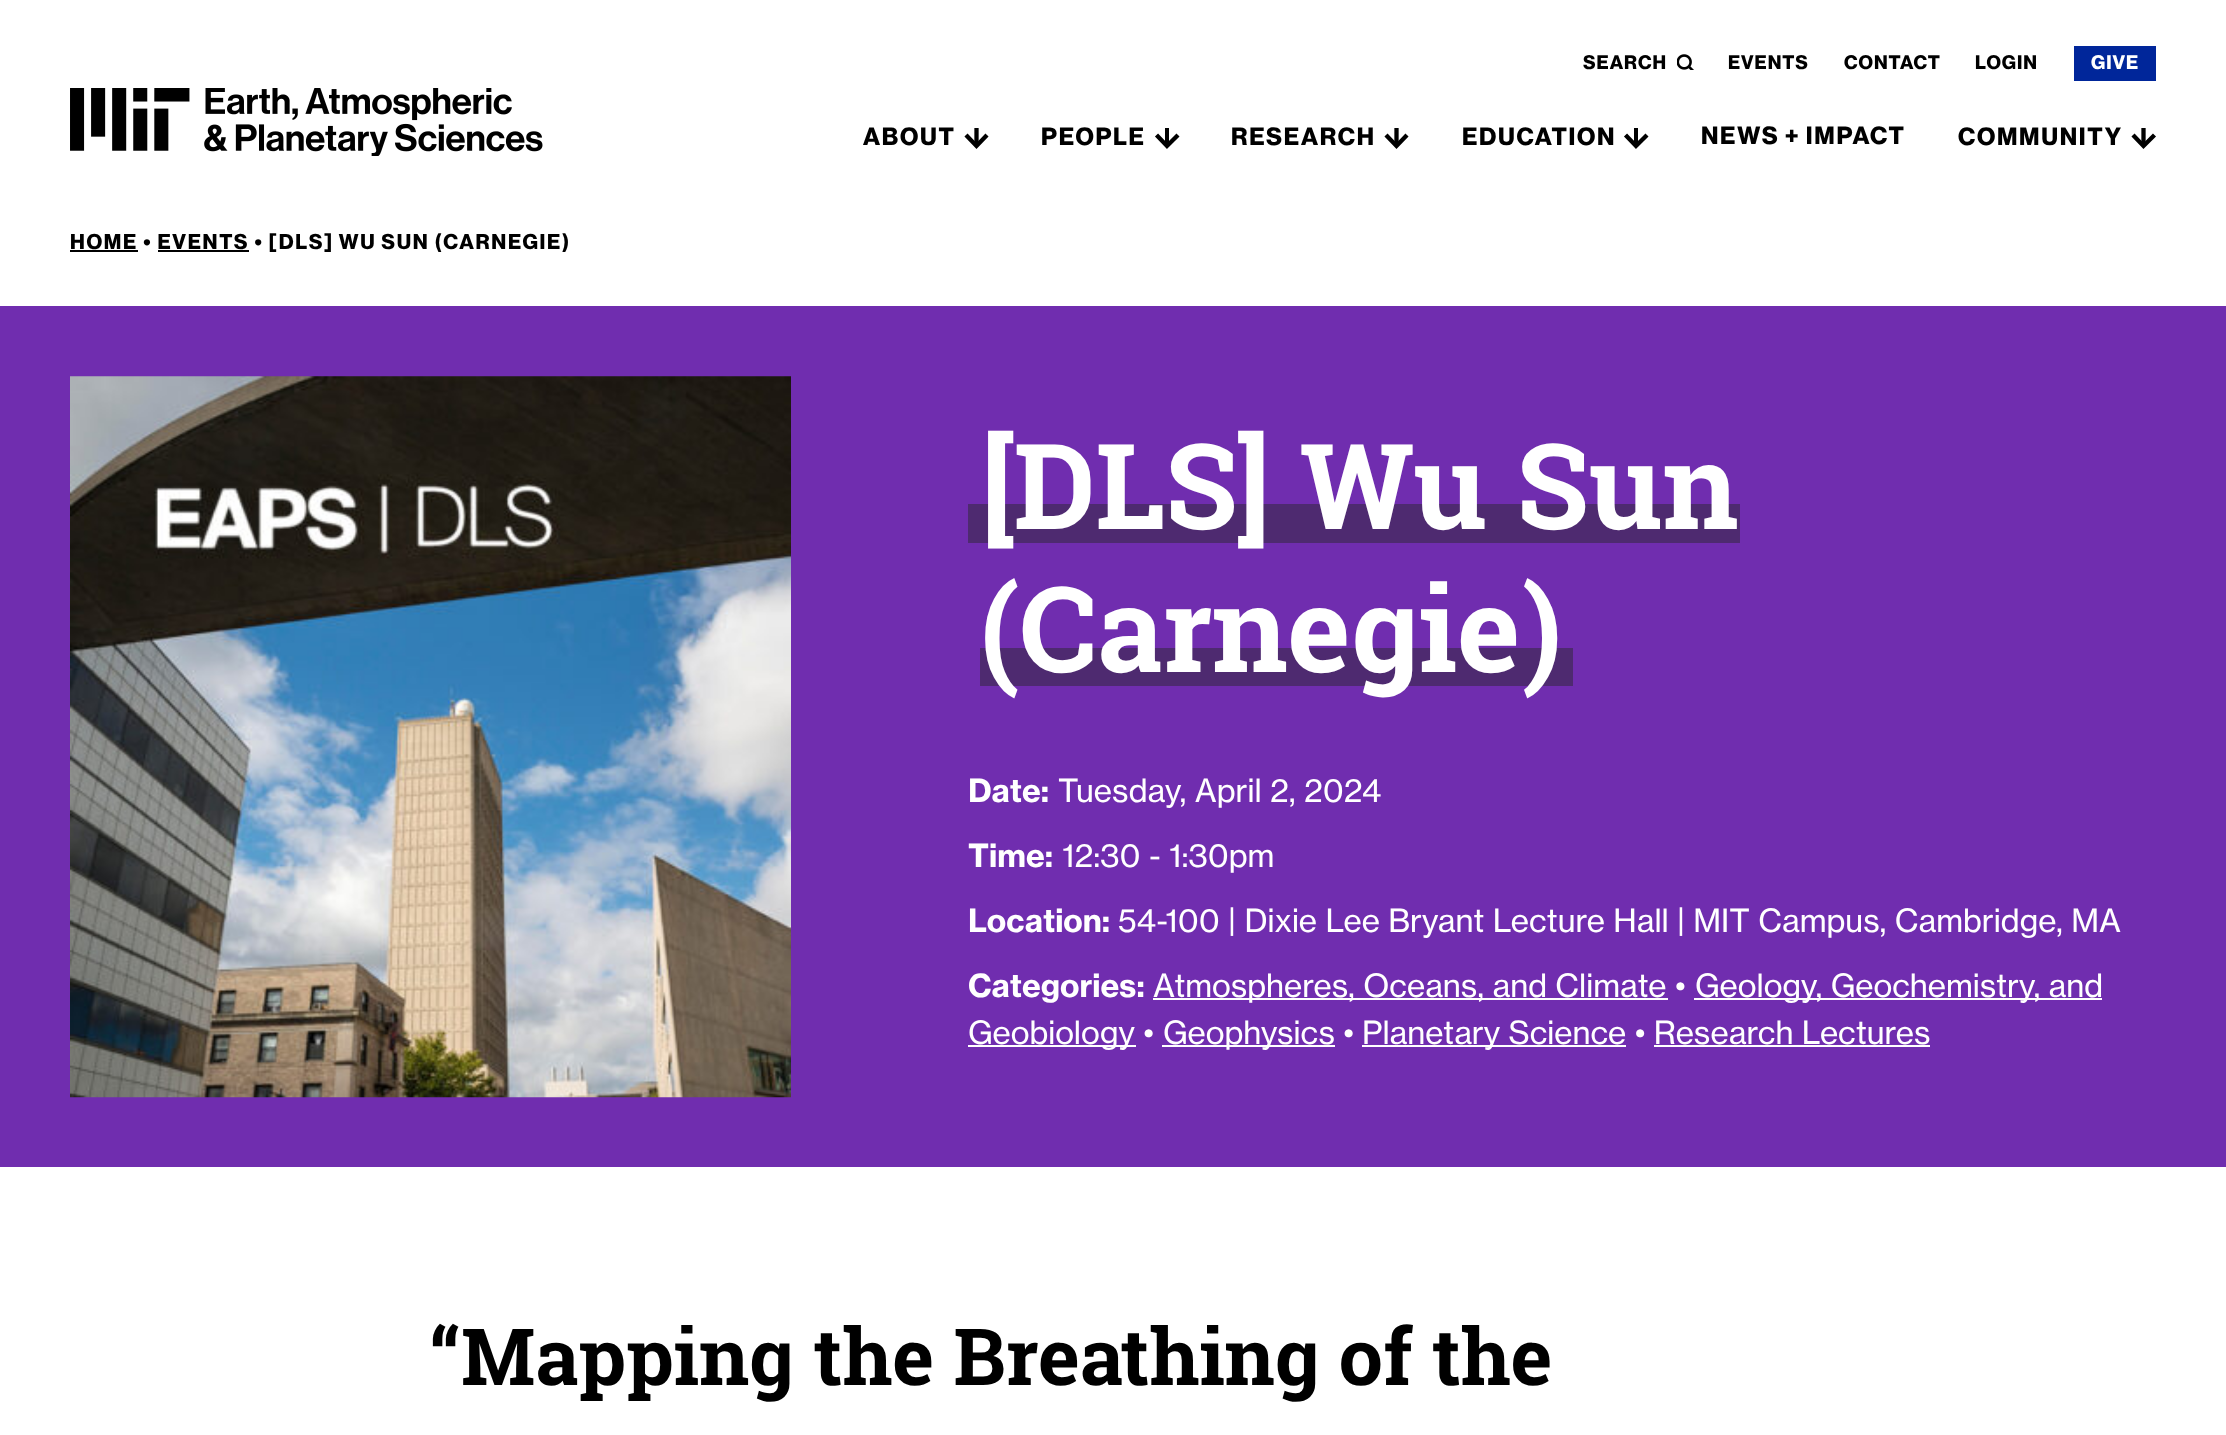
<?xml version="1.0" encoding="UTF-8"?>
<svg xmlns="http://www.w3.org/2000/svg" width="2226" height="1435">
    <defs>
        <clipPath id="clip1"><rect x="964" y="128" width="25" height="24"/></clipPath>
        <clipPath id="clip2"><rect x="1384" y="128" width="25" height="24"/></clipPath>
        <clipPath id="clip3"><rect x="2132" y="128" width="24" height="24"/></clipPath>
    </defs>
    <rect width="100%" height="100%" fill="#FFFFFF"/>
    <image x="70" y="88" width="473" height="68" href="img_01.png"/>
    <text x="1583" y="69" font-family="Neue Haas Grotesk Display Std" font-size="19.25" font-weight="700" letter-spacing="1" fill="#000000">SEARCH</text>
    <image x="1677" y="54" width="17" height="16" href="img_02.png"/>
    <text x="1728" y="69" font-family="Neue Haas Grotesk Display Std" font-size="19.25" font-weight="700" letter-spacing="1" fill="#000000">EVENTS</text>
    <text x="1844" y="69" font-family="Neue Haas Grotesk Display Std" font-size="19.25" font-weight="700" letter-spacing="1" fill="#000000">CONTACT</text>
    <text x="1975" y="69" font-family="Neue Haas Grotesk Display Std" font-size="19.25" font-weight="700" letter-spacing="1" fill="#000000">LOGIN</text>
    <rect x="2074" y="46" width="82" height="35" fill="#00269A"/>
    <text x="2091" y="69" font-family="Neue Haas Grotesk Display Std" font-size="19.25" font-weight="700" letter-spacing="1" fill="#FFFFFF">GIVE</text>
    <text x="863" y="145" font-family="Neue Haas Grotesk Display Std" font-size="24.5" font-weight="700" letter-spacing="1.7" fill="#000000">ABOUT</text>
    <g clip-path="url(#clip1)">
        <path d="M 976.5 124.5 V 145.5" fill="none" stroke="#000000" stroke-width="4.3"/>
    </g>
    <path d="M 966 135 L 976.5 146 L 987 135" fill="none" stroke="#000000" stroke-width="4.3"/>
    <text x="1041" y="145" font-family="Neue Haas Grotesk Display Std" font-size="24.5" font-weight="700" letter-spacing="1.7" fill="#000000">PEOPLE</text>
    <rect x="1165" y="128" width="4" height="18" fill="#000000"/>
    <path d="M 1156.5 135 L 1167 146 L 1178 135" fill="none" stroke="#000000" stroke-width="4.3"/>
    <text x="1231" y="145" font-family="Neue Haas Grotesk Display Std" font-size="24.5" font-weight="700" letter-spacing="1.7" fill="#000000">RESEARCH</text>
    <g clip-path="url(#clip2)">
        <path d="M 1396.5 124.5 V 145.5" fill="none" stroke="#000000" stroke-width="4.3"/>
    </g>
    <path d="M 1386 135 L 1396.5 146 L 1407 135" fill="none" stroke="#000000" stroke-width="4.3"/>
    <text x="1462" y="145" font-family="Neue Haas Grotesk Display Std" font-size="24.5" font-weight="700" letter-spacing="1.7" fill="#000000">EDUCATION</text>
    <rect x="1634" y="128" width="4" height="18" fill="#000000"/>
    <path d="M 1625.5 135 L 1636 146 L 1647 135" fill="none" stroke="#000000" stroke-width="4.3"/>
    <text x="1701" y="144" font-family="Neue Haas Grotesk Display Std" font-size="24.5" font-weight="700" letter-spacing="1.7" fill="#000000">NEWS + IMPACT</text>
    <text x="1958" y="145" font-family="Neue Haas Grotesk Display Std" font-size="24.5" font-weight="700" letter-spacing="1.7" fill="#000000">COMMUNITY</text>
    <g clip-path="url(#clip3)">
        <path d="M 2143.5 124.5 V 145.5" fill="none" stroke="#000000" stroke-width="4.3"/>
    </g>
    <path d="M 2133 135 L 2143.5 146 L 2154.5 135" fill="none" stroke="#000000" stroke-width="4.3"/>
    <rect x="70" y="250" width="68" height="2" fill="#000000"/>
    <text x="70" y="249" font-family="Neue Haas Grotesk Display Std" font-size="21" font-weight="700" letter-spacing="1.7" fill="#000000">HOME • EVENTS • [DLS] WU SUN (CARNEGIE)</text>
    <rect x="158" y="250" width="91" height="2" fill="#000000"/>
    <rect x="0" y="306" width="2226" height="861" fill="#702DAF"/>
    <image x="70" y="376" width="721" height="722" href="img_03.png"/>
    <rect x="968" y="504" width="772" height="39" fill="#4E2A70"/>
    <text x="980" y="529" font-family="Roboto Slab" font-size="119" font-weight="700" fill="#FFFFFF">[DLS] Wu Sun</text>
    <rect x="980" y="648" width="593" height="38" fill="#4E2A70"/>
    <text x="980" y="672" font-family="Roboto Slab" font-size="119" font-weight="700" fill="#FFFFFF">(Carnegie)</text>
    <text x="968" y="802" font-family="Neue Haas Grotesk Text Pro" font-size="31.5" font-weight="700" fill="#FFFFFF">Date:</text>
    <text x="1058" y="802" font-family="Neue Haas Grotesk Text Pro" font-size="31.5" fill="#FFFFFF">Tuesday, April 2, 2024</text>
    <text x="968" y="867" font-family="Neue Haas Grotesk Text Pro" font-size="31.5" font-weight="700" fill="#FFFFFF">Time:</text>
    <text x="1062" y="867" font-family="Neue Haas Grotesk Text Pro" font-size="31.5" fill="#FFFFFF">12:30 - 1:30pm</text>
    <text x="968" y="932" font-family="Neue Haas Grotesk Text Pro" font-size="31.5" font-weight="700" fill="#FFFFFF">Location:</text>
    <text x="1118" y="932" font-family="Neue Haas Grotesk Text Pro" font-size="31.5" fill="#FFFFFF">54-100 | Dixie Lee Bryant Lecture Hall | MIT Campus, Cambridge, MA</text>
    <text x="968" y="997" font-family="Neue Haas Grotesk Text Pro" font-size="31.5" font-weight="700" fill="#FFFFFF">Categories:</text>
    <rect x="1153" y="998" width="515" height="2" fill="#FFFFFF"/>
    <text x="1153" y="997" font-family="Neue Haas Grotesk Text Pro" font-size="31.5" fill="#FFFFFF">Atmospheres, Oceans, and Climate •</text>
    <rect x="1694" y="998" width="408" height="2" fill="#FFFFFF"/>
    <text x="1695" y="997" font-family="Neue Haas Grotesk Text Pro" font-size="31.5" fill="#FFFFFF">Geology, Geochemistry, and</text>
    <rect x="968" y="1045" width="168" height="2" fill="#FFFFFF"/>
    <text x="968" y="1044" font-family="Neue Haas Grotesk Text Pro" font-size="31.5" fill="#FFFFFF">Geobiology •</text>
    <rect x="1162" y="1045" width="173" height="2" fill="#FFFFFF"/>
    <text x="1163" y="1044" font-family="Neue Haas Grotesk Text Pro" font-size="31.5" fill="#FFFFFF">Geophysics •</text>
    <rect x="1362" y="1045" width="264" height="2" fill="#FFFFFF"/>
    <text x="1362" y="1044" font-family="Neue Haas Grotesk Text Pro" font-size="31.5" fill="#FFFFFF">Planetary Science • Research Lectures</text>
    <rect x="1654" y="1045" width="276" height="2" fill="#FFFFFF"/>
    <text x="429" y="1385" font-family="Roboto Slab" font-size="78.75" font-weight="700" fill="#000000">“Mapping the Breathing of the</text>
</svg>
